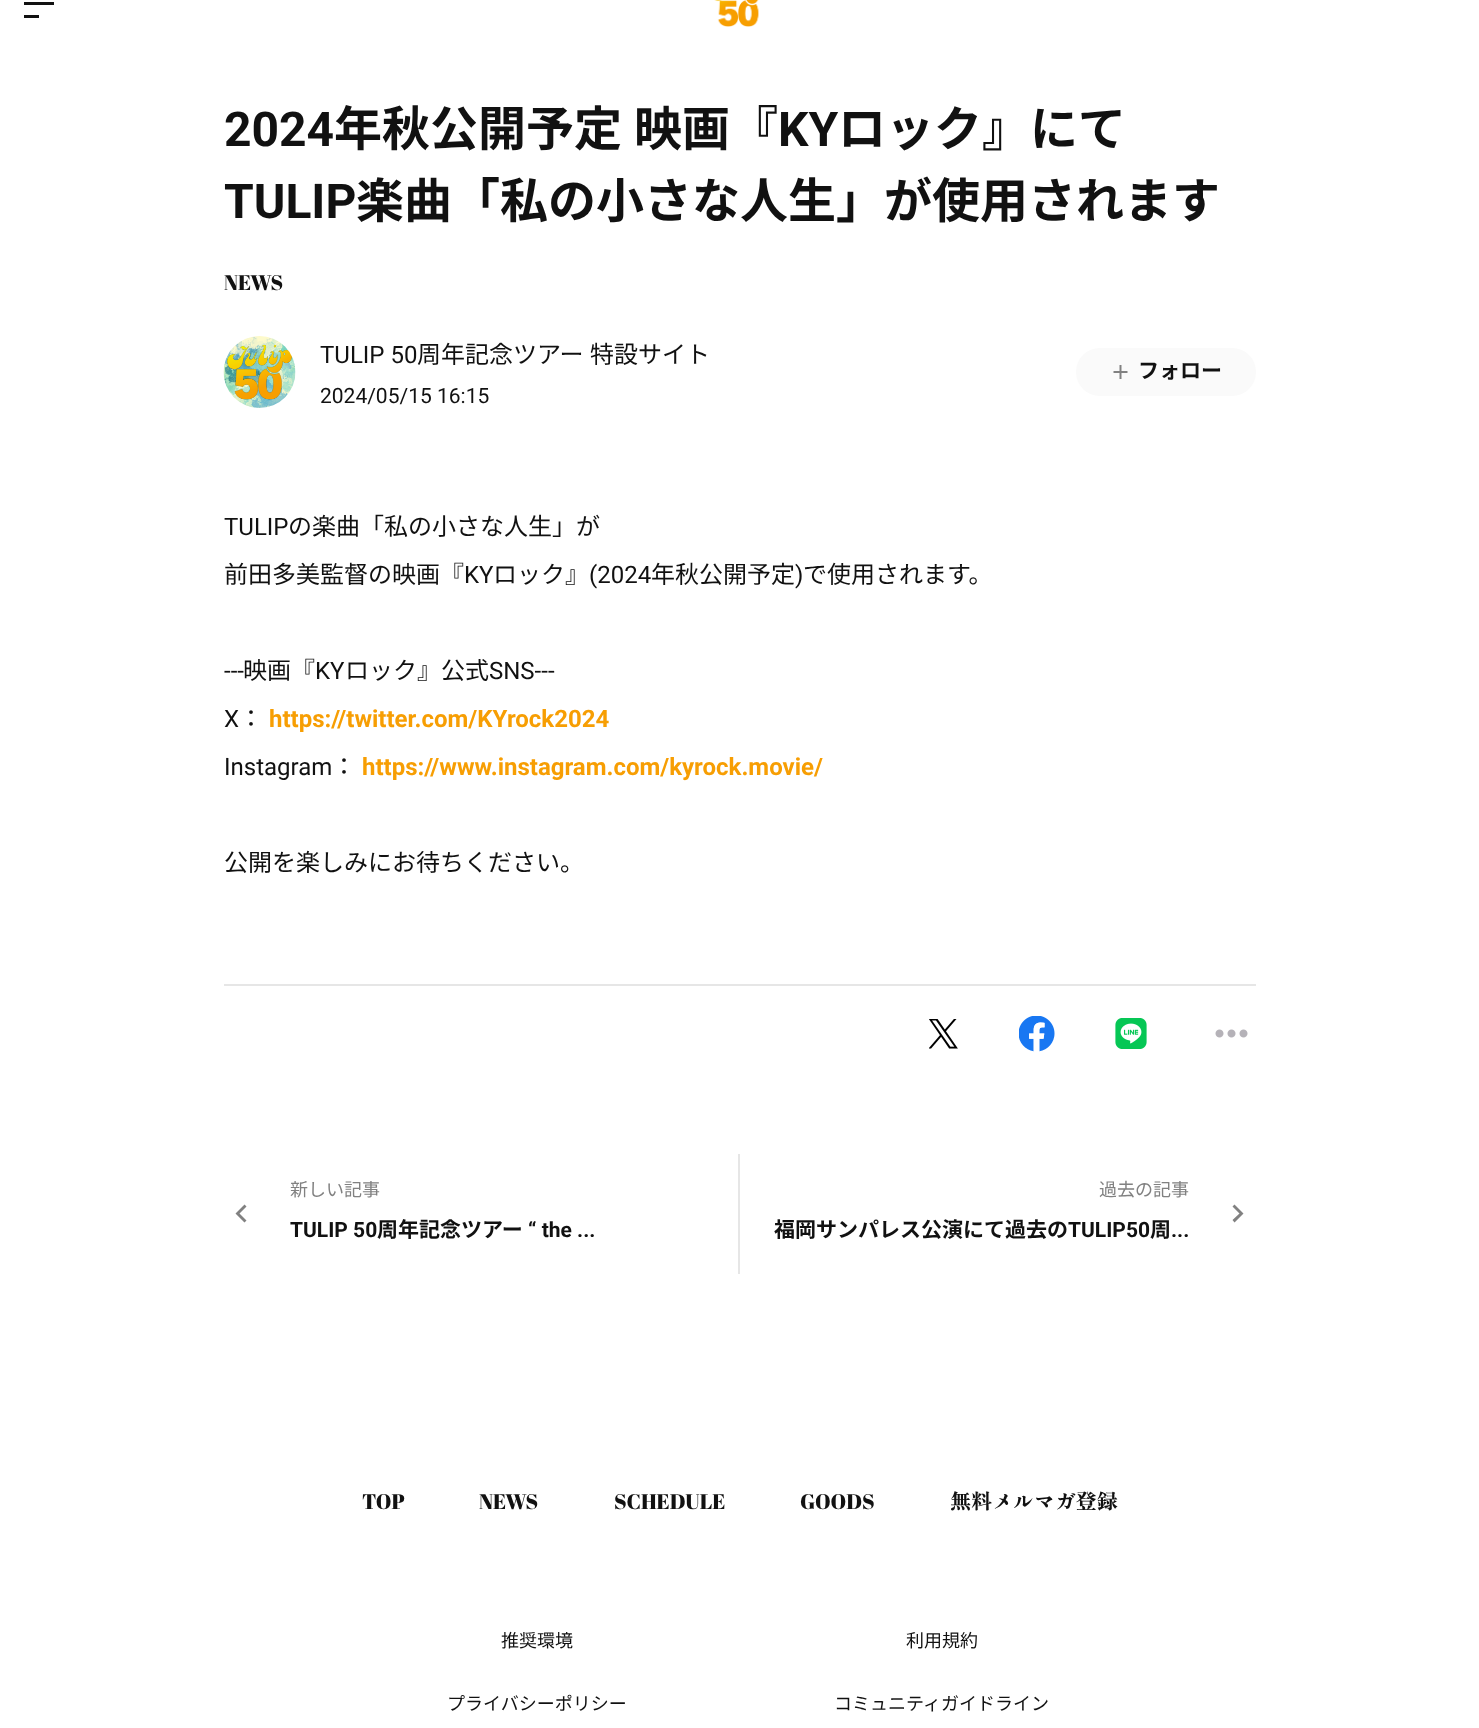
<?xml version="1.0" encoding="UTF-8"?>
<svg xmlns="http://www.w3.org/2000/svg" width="1479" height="1728">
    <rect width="100%" height="100%" fill="#FFFFFF"/>
    <rect x="24" y="2" width="30" height="3" fill="#111111"/>
    <rect x="24" y="15" width="15" height="3" fill="#111111"/>
    <image x="714" y="0" width="45" height="27" href="img_01.png"/>
    <text x="224" y="146" font-family="Roboto" font-size="48" font-weight="700" fill="#111111">2024</text>
    <text x="334" y="146" word-spacing="1" font-family="Noto Sans JP" font-size="48" font-weight="700" fill="#111111">年秋公開予定 映画『</text>
    <text x="778" y="146" font-family="Roboto" font-size="48" font-weight="700" fill="#111111">KY</text>
    <text x="838" y="146" font-family="Noto Sans JP" font-size="48" font-weight="700" fill="#111111">ロック』にて</text>
    <text x="224" y="218" font-family="Roboto" font-size="48" font-weight="700" fill="#111111">TULIP</text>
    <text x="356" y="218" font-family="Noto Sans JP" font-size="48" font-weight="700" fill="#111111">楽曲「私の小さな人生」が使用されます</text>
    <text x="224" y="290" font-family="Abril Fatface" font-size="21" fill="#111111">NEWS</text>
    <image x="223" y="336" width="73" height="72" href="img_02.png"/>
    <text x="320" y="363" font-family="Roboto" font-size="24" fill="#111111">TULIP 50</text>
    <text x="417" y="363" word-spacing="1" font-family="Noto Sans JP" font-size="24" fill="#111111">周年記念ツアー 特設サイト</text>
    <text x="320" y="403" font-family="Roboto" font-size="21" fill="#111111">2024/05/15 16:15</text>
    <rect x="1076" y="348" width="180" height="48" rx="24" fill="#FAFAFA"/>
    <image x="1113" y="365" width="15" height="14" href="img_03.png"/>
    <text x="1138" y="378" font-family="Noto Sans JP" font-size="21" font-weight="700" fill="#111111">フォロー</text>
    <text x="224" y="535" font-family="Roboto" font-size="24" fill="#111111">TULIP</text>
    <text x="288" y="535" font-family="Noto Sans JP" font-size="24" fill="#111111">の楽曲「私の小さな人生」が</text>
    <text x="224" y="583" font-family="Noto Sans JP" font-size="24" fill="#111111">前田多美監督の映画『</text>
    <text x="464" y="583" font-family="Roboto" font-size="24" fill="#111111">KY</text>
    <text x="493" y="583" font-family="Noto Sans JP" font-size="24" fill="#111111">ロック』</text>
    <text x="589" y="583" font-family="Roboto" font-size="24" fill="#111111">(2024</text>
    <text x="651" y="583" font-family="Noto Sans JP" font-size="24" fill="#111111">年秋公開予定</text>
    <text x="795" y="583" font-family="Roboto" font-size="24" fill="#111111">)</text>
    <text x="803" y="583" font-family="Noto Sans JP" font-size="24" fill="#111111">で使用されます。</text>
    <text x="224" y="679" font-family="Roboto" font-size="24" fill="#111111">---</text>
    <text x="243" y="679" font-family="Noto Sans JP" font-size="24" fill="#111111">映画『</text>
    <text x="315" y="679" font-family="Roboto" font-size="24" fill="#111111">KY</text>
    <text x="345" y="679" font-family="Noto Sans JP" font-size="24" fill="#111111">ロック』公式</text>
    <text x="489" y="679" font-family="Roboto" font-size="24" fill="#111111">SNS---</text>
    <text x="224" y="727" font-family="Roboto" font-size="24" fill="#111111">X</text>
    <text x="239" y="727" font-family="Noto Sans JP" font-size="24" fill="#111111">：</text>
    <text x="269" y="727" font-family="Roboto" font-size="24" font-weight="700" fill="#F79E03">https://twitter.com/KYrock2024</text>
    <text x="224" y="775" font-family="Roboto" font-size="24" fill="#111111">Instagram</text>
    <text x="332" y="775" font-family="Noto Sans JP" font-size="24" fill="#111111">：</text>
    <text x="362" y="775" font-family="Roboto" font-size="24" font-weight="700" fill="#F79E03">https://www.instagram.com/kyrock.movie/</text>
    <text x="224" y="871" font-family="Noto Sans JP" font-size="24" fill="#111111">公開を楽しみにお待ちください。</text>
    <rect x="224" y="984" width="1032" height="2" fill="#E6E6E6"/>
    <image x="929" y="1019" width="29" height="30" href="img_04.png"/>
    <image x="1019" y="1016" width="36" height="36" href="img_05.png"/>
    <image x="1115" y="1018" width="32" height="31" href="img_06.png"/>
    <image x="1215" y="1029" width="33" height="9" href="img_07.png"/>
    <rect x="738" y="1154" width="2" height="120" fill="#E6E6E6"/>
    <path d="M 244.5 1204.5 L 246.5 1206.5 L 239.5 1213.5 L 246.5 1220.5 L 244.5 1222.5 L 235.5 1213.5 Z" fill="#818181"/>
    <text x="290" y="1196" font-family="Noto Sans JP" font-size="18" fill="#818181">新しい記事</text>
    <text x="290" y="1237" font-family="Roboto" font-size="21" font-weight="700" fill="#111111">TULIP 50</text>
    <text x="377" y="1237" font-family="Noto Sans JP" font-size="21" font-weight="700" fill="#111111">周年記念ツアー</text>
    <text x="528" y="1237" font-family="Roboto" font-size="21" font-weight="700" fill="#111111">“ the ...</text>
    <text x="1099" y="1196" font-family="Noto Sans JP" font-size="18" fill="#818181">過去の記事</text>
    <text x="774" y="1237" font-family="Noto Sans JP" font-size="21" font-weight="700" fill="#111111">福岡サンパレス公演にて過去の</text>
    <text x="1068" y="1237" font-family="Roboto" font-size="21" font-weight="700" fill="#111111">TULIP50</text>
    <text x="1150" y="1237" font-family="Noto Sans JP" font-size="21" font-weight="700" fill="#111111">周</text>
    <text x="1171" y="1237" font-family="Roboto" font-size="21" font-weight="700" fill="#111111">...</text>
    <path d="M 1234.5 1222.5 L 1232.5 1220 L 1239.5 1213.5 L 1232.5 1206.5 L 1234.5 1204.5 L 1243.5 1213.5 Z" fill="#818181"/>
    <text x="362" y="1509" font-family="Abril Fatface" font-size="21" fill="#111111">TOP</text>
    <text x="479" y="1509" font-family="Abril Fatface" font-size="21" fill="#111111">NEWS</text>
    <text x="614" y="1509" font-family="Abril Fatface" font-size="21" fill="#111111">SCHEDULE</text>
    <text x="800" y="1509" font-family="Abril Fatface" font-size="21" fill="#111111">GOODS</text>
    <text x="950" y="1509" font-family="Zen Antique" font-size="21" fill="#111111">無料メルマガ登録</text>
    <text x="501" y="1647" font-family="Noto Sans JP" font-size="18" fill="#111111">推奨環境</text>
    <text x="906" y="1647" font-family="Noto Sans JP" font-size="18" fill="#111111">利用規約</text>
    <text x="447" y="1710" font-family="Noto Sans JP" font-size="18" fill="#111111">プライバシーポリシー</text>
    <text x="834" y="1710" font-family="Noto Sans JP" font-size="18" fill="#111111">コミュニティガイドライン</text>
</svg>
